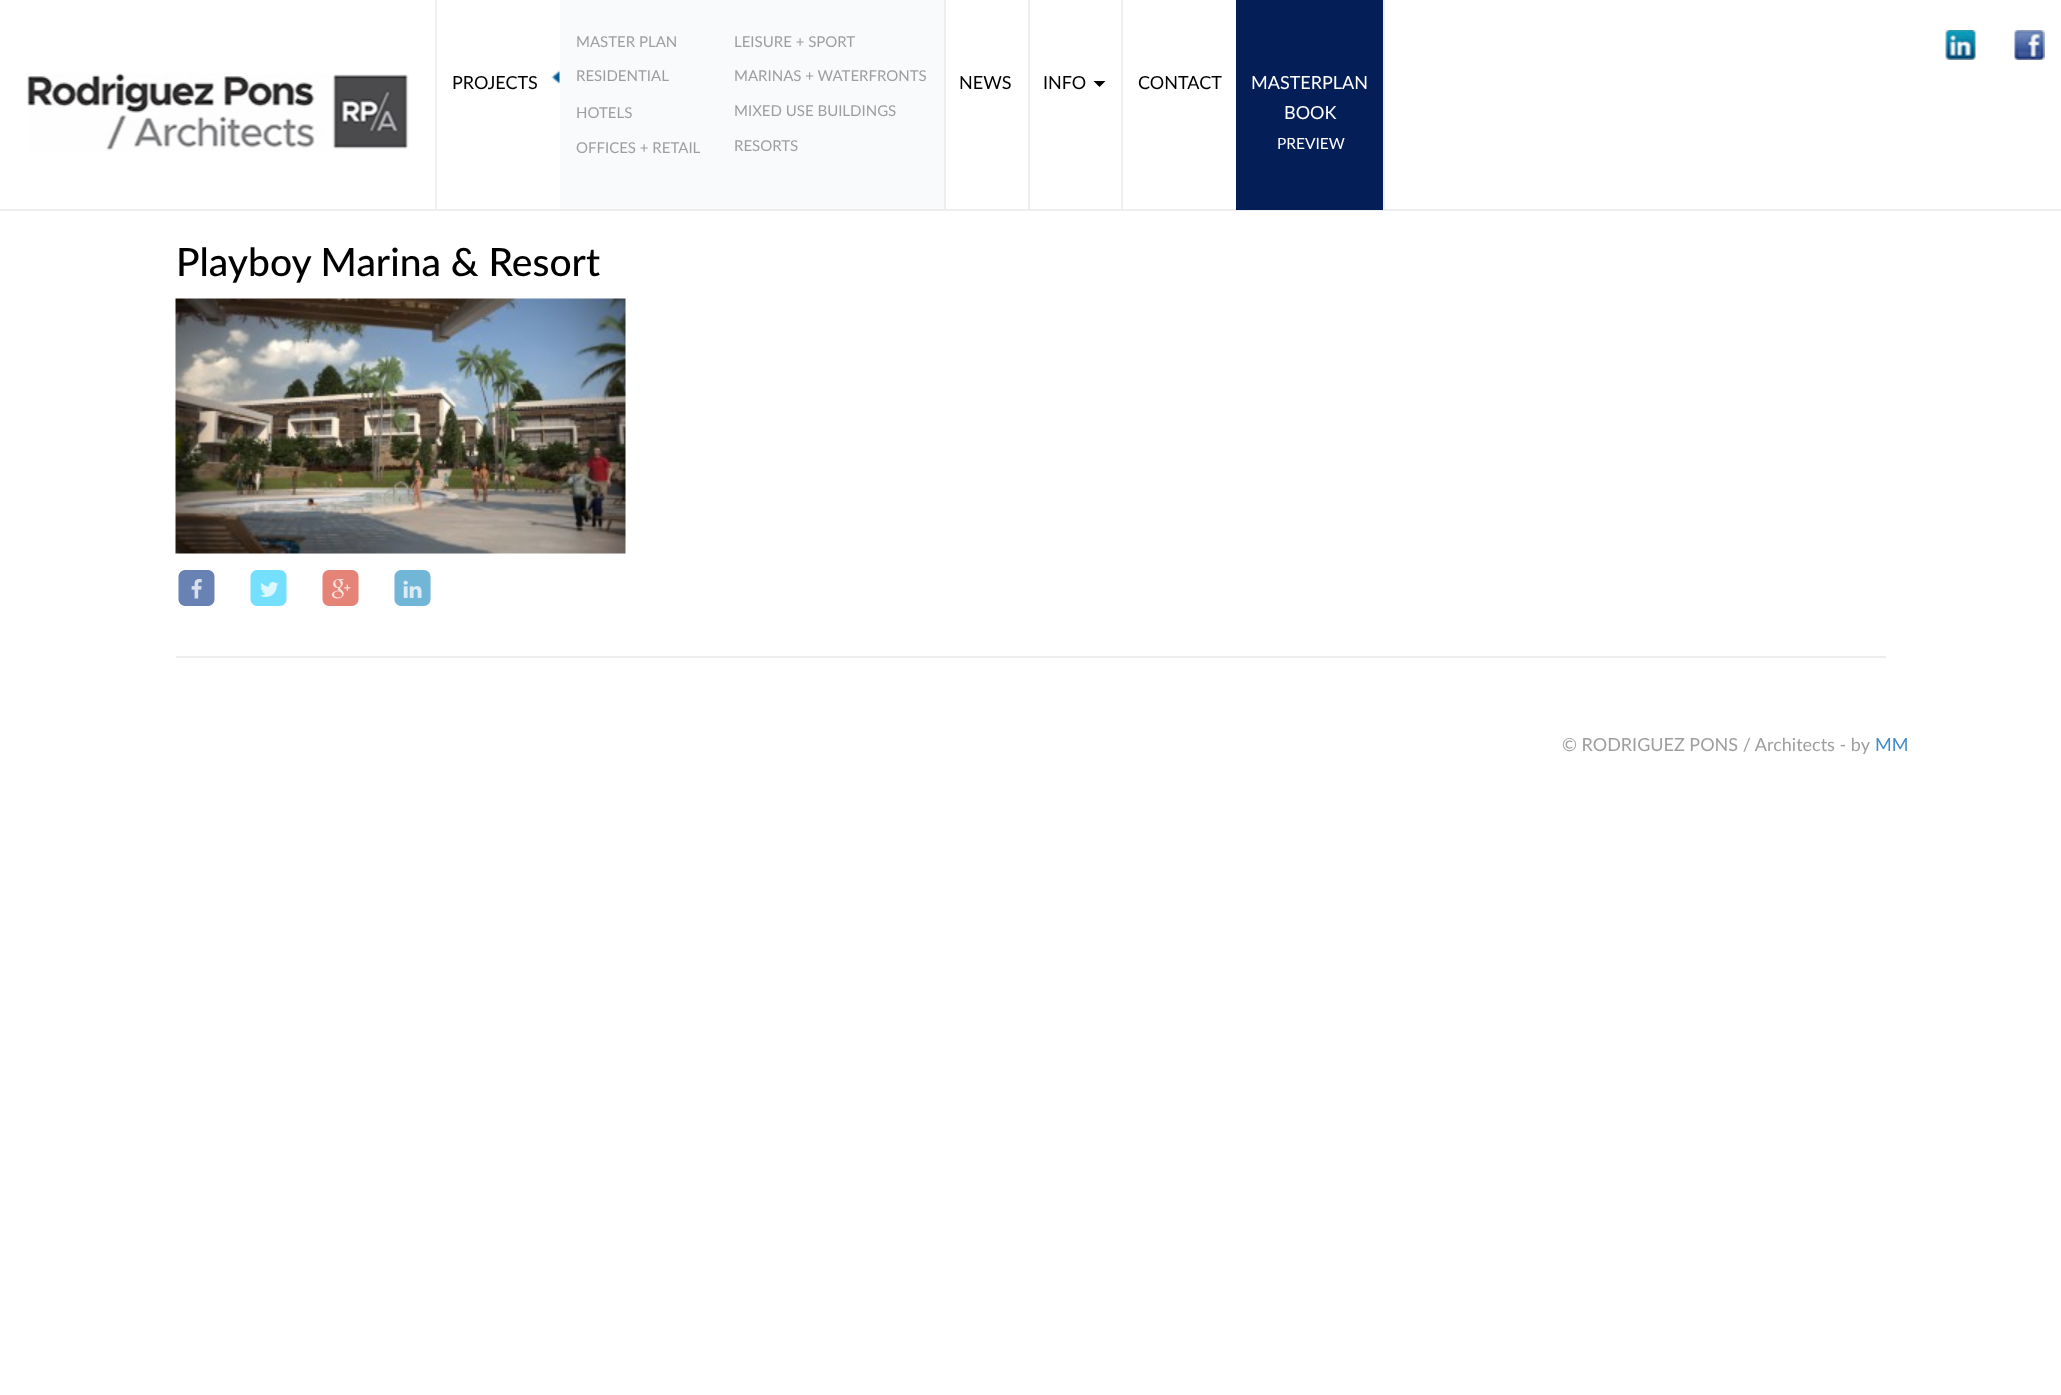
<?xml version="1.0" encoding="UTF-8"?>
<svg xmlns="http://www.w3.org/2000/svg" width="2061" height="1395">
    <rect width="100%" height="100%" fill="#FFFFFF"/>
    <rect x="560" y="0" width="384" height="209" fill="#F8FAFC"/>
    <rect x="0" y="209" width="2061" height="2" fill="#EEEEEE"/>
    <rect x="560" y="209" width="384" height="1" fill="#E8EAEC"/>
    <image x="27" y="73" width="382" height="78" href="img_01.png"/>
    <rect x="435" y="0" width="2" height="210" fill="#EEEEEE"/>
    <text x="452" y="89" font-family="Lato" font-size="18" fill="#000000">PROJECTS</text>
    <image x="551" y="70" width="9" height="14" href="img_02.png"/>
    <text x="576" y="47" font-family="Lato" font-size="15" fill="#9E9E9E">MASTER PLAN</text>
    <text x="576" y="81" font-family="Lato" font-size="15" fill="#9E9E9E">RESIDENTIAL</text>
    <text x="576" y="118" font-family="Lato" font-size="15" fill="#9E9E9E">HOTELS</text>
    <text x="576" y="153" font-family="Lato" font-size="15" fill="#9E9E9E">OFFICES + RETAIL</text>
    <text x="734" y="47" font-family="Lato" font-size="15" fill="#9E9E9E">LEISURE + SPORT</text>
    <text x="734" y="81" font-family="Lato" font-size="15" fill="#9E9E9E">MARINAS + WATERFRONTS</text>
    <text x="734" y="116" font-family="Lato" font-size="15" fill="#9E9E9E">MIXED USE BUILDINGS</text>
    <text x="734" y="151" font-family="Lato" font-size="15" fill="#9E9E9E">RESORTS</text>
    <rect x="944" y="0" width="2" height="210" fill="#EEEEEE"/>
    <text x="959" y="89" font-family="Lato" font-size="18" fill="#000000">NEWS</text>
    <rect x="1028" y="0" width="2" height="210" fill="#EEEEEE"/>
    <text x="1043" y="89" font-family="Lato" font-size="18" fill="#000000">INFO</text>
    <path d="M 1093.5 81 H 1105.5 L 1099.5 87 Z" fill="#000000"/>
    <rect x="1121" y="0" width="2" height="210" fill="#EEEEEE"/>
    <text x="1138" y="89" font-family="Lato" font-size="18" fill="#000000">CONTACT</text>
    <rect x="1236" y="0" width="147" height="210" fill="#041F57"/>
    <text x="1251" y="89" font-family="Lato" font-size="18" fill="#FFFFFF">MASTERPLAN</text>
    <text x="1284" y="119" font-family="Lato" font-size="18" fill="#FFFFFF">BOOK</text>
    <text x="1277" y="149" font-family="Lato" font-size="15.5" fill="#FFFFFF">PREVIEW</text>
    <rect x="1383" y="0" width="2" height="210" fill="#EEEEEE"/>
    <image x="1945" y="30" width="31" height="30" href="img_03.png"/>
    <image x="2014" y="30" width="31" height="30" href="img_04.png"/>
    <text x="176" y="276" font-family="Lato" font-size="39" font-weight="500" fill="#000000">Playboy Marina &amp; Resort</text>
    <image x="175" y="298" width="451" height="256" href="img_05.png"/>
    <image x="178" y="570" width="37" height="36" href="img_06.png"/>
    <image x="191" y="579" width="11" height="20" href="img_07.png"/>
    <image x="250" y="570" width="37" height="36" href="img_08.png"/>
    <image x="260" y="582" width="19" height="15" href="img_09.png"/>
    <image x="322" y="570" width="37" height="36" href="img_10.png"/>
    <image x="331" y="579" width="20" height="20" href="img_11.png"/>
    <image x="394" y="570" width="37" height="36" href="img_12.png"/>
    <image x="403" y="580" width="19" height="18" href="img_13.png"/>
    <rect x="176" y="656" width="1710" height="2" fill="#EEEEEE"/>
    <text x="1562" y="751" font-family="Lato" font-size="18" fill="#9E9E9E">© RODRIGUEZ PONS / Architects - by</text>
    <text x="1875" y="751" font-family="Lato" font-size="18" fill="#428BCA">MM</text>
</svg>
